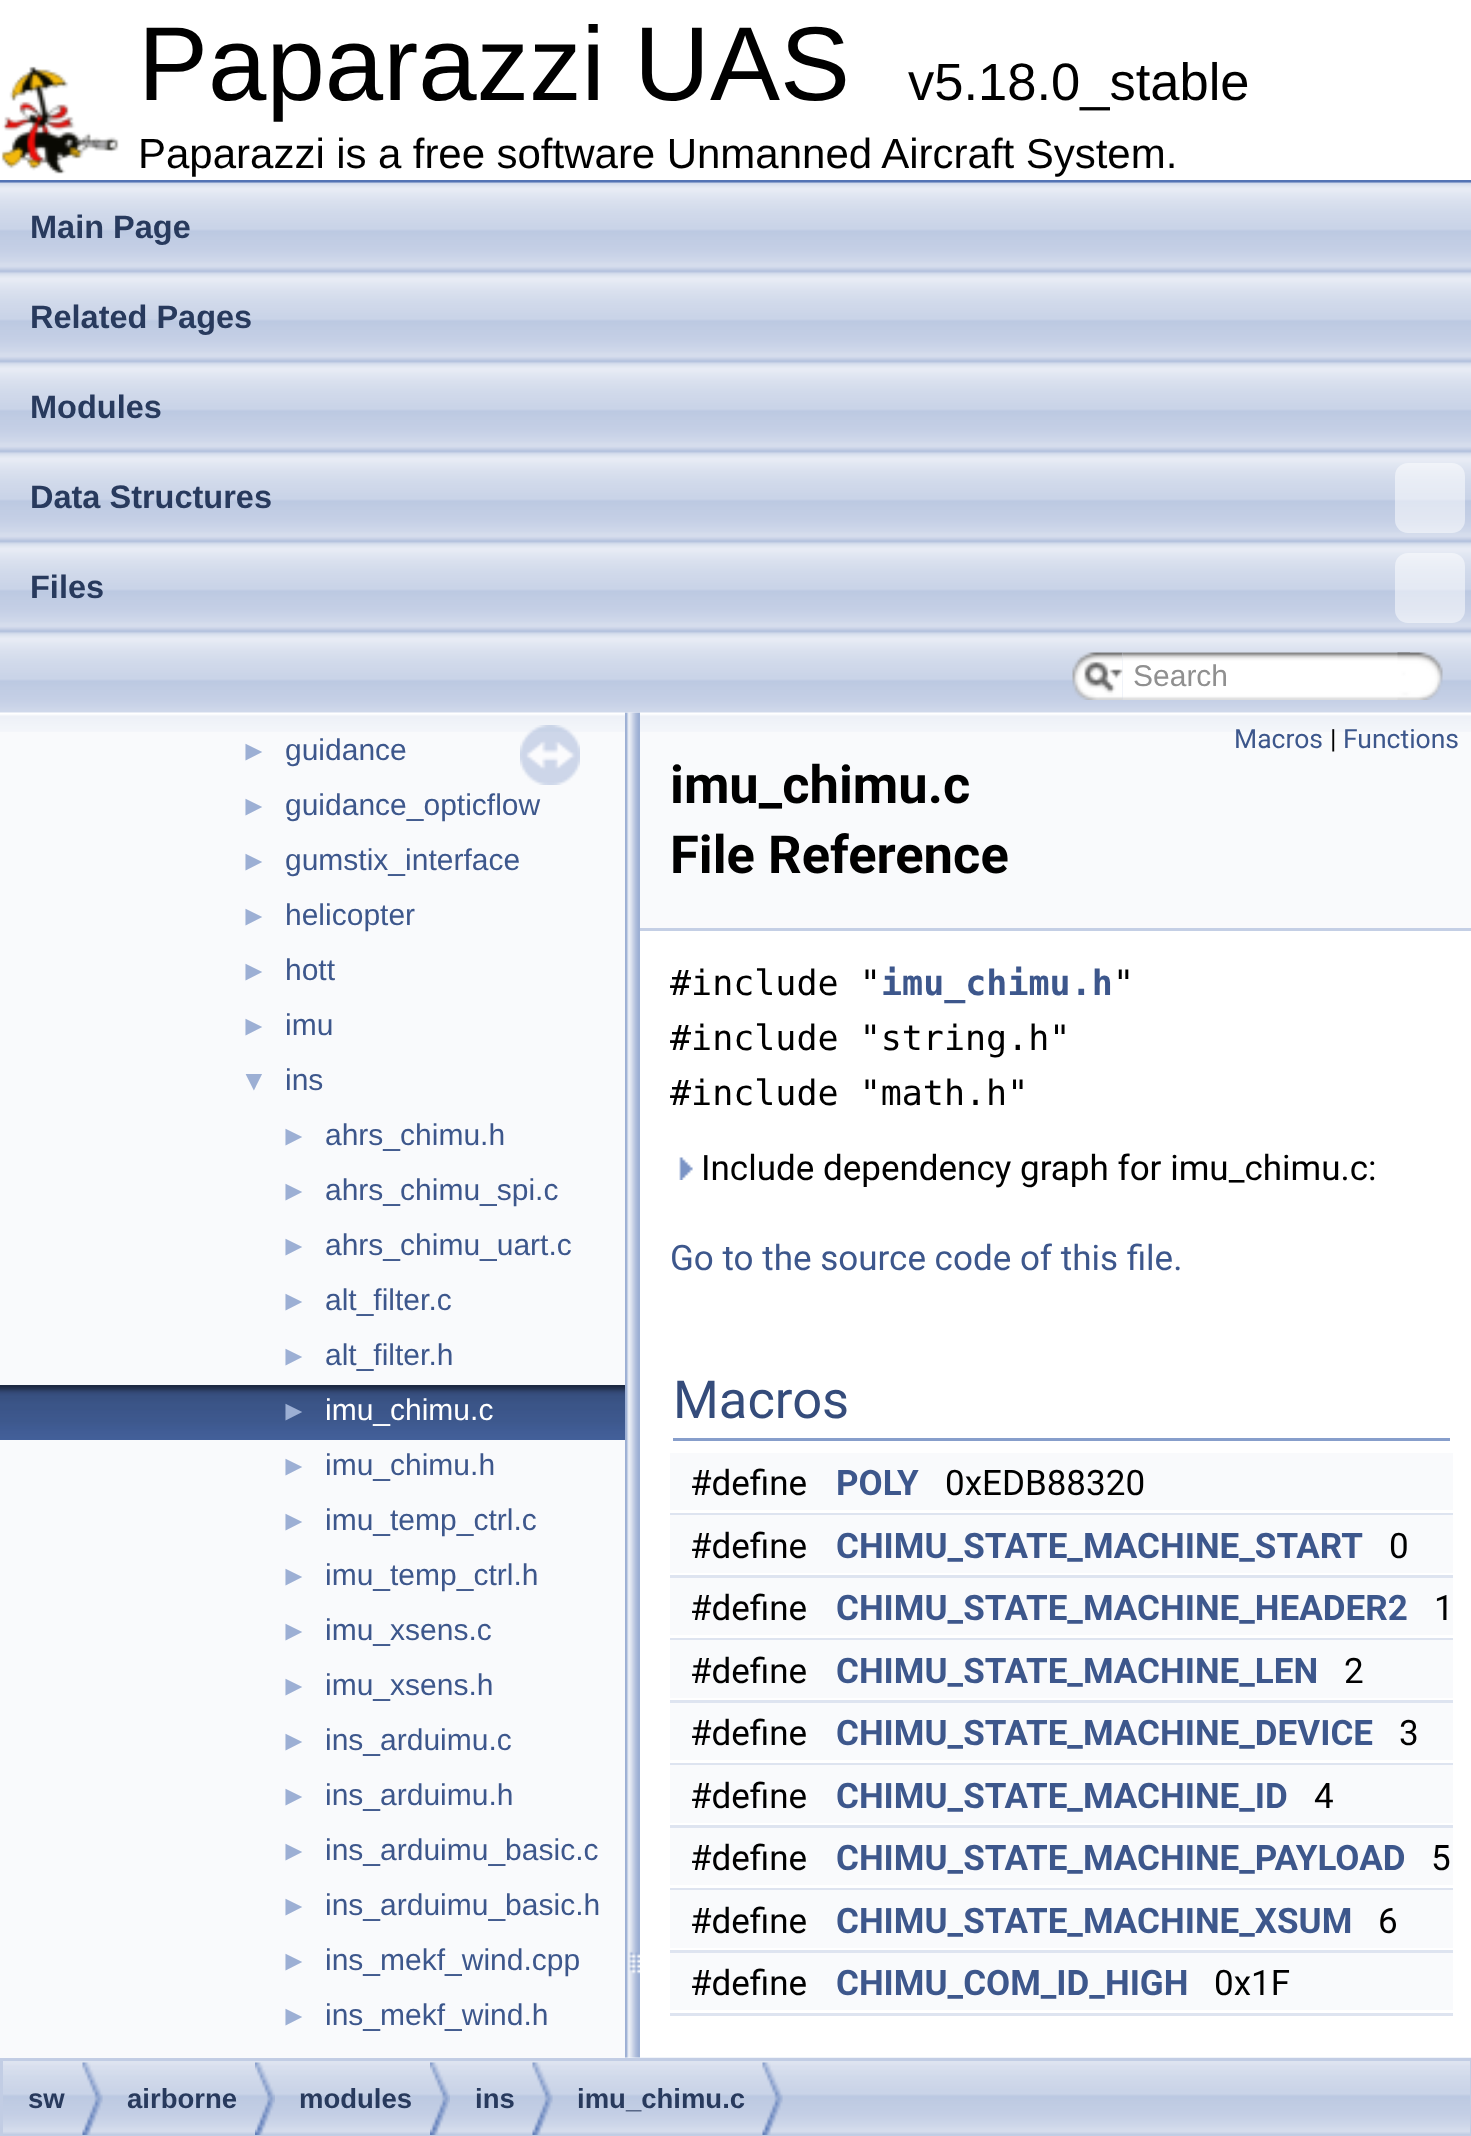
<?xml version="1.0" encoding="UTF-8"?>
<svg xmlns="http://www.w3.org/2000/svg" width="1471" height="2136">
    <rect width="100%" height="100%" fill="#FFFFFF"/>
    <rect x="0" y="180" width="1471" height="3" fill="#5373B4"/>
    <image x="1" y="66" width="118" height="108" href="img_01.png"/>
    <text x="138" y="100" font-family="Liberation Sans" font-size="105" fill="#000000">Paparazzi UAS</text>
    <text x="908" y="100" font-family="Liberation Sans" font-size="52.5" fill="#000000">v5.18.0_stable</text>
    <text x="138" y="168" word-spacing="-0.25" font-family="Liberation Sans" font-size="42" fill="#000000">Paparazzi is a free software Unmanned Aircraft System.</text>
    <image x="3" y="2057" width="1468" height="78" href="img_13.png"/>
    <image x="625" y="712" width="15" height="1346" href="img_10.png"/>
    <image x="0" y="182" width="1471" height="531" href="img_02.png"/>
    <text x="30" y="238" font-family="Liberation Sans" font-size="32.5" font-weight="700" fill="#283A5D">Main Page</text>
    <text x="30" y="328" font-family="Liberation Sans" font-size="32.5" font-weight="700" fill="#283A5D">Related Pages</text>
    <text x="30" y="418" font-family="Liberation Sans" font-size="32.5" font-weight="700" fill="#283A5D">Modules</text>
    <text x="30" y="508" font-family="Liberation Sans" font-size="32.5" font-weight="700" fill="#283A5D">Data Structures</text>
    <rect x="1395" y="463" width="70" height="70" rx="13" fill="#FFFFFF" fill-opacity="0.5"/>
    <text x="30" y="598" font-family="Liberation Sans" font-size="32.5" font-weight="700" fill="#283A5D">Files</text>
    <rect x="1395" y="553" width="70" height="70" rx="13" fill="#FFFFFF" fill-opacity="0.5"/>
    <image x="1072" y="652" width="51" height="48" href="img_03.png"/>
    <image x="1084" y="661" width="39" height="32" href="img_04.png"/>
    <image x="1122" y="652" width="288" height="48" href="img_05.png"/>
    <text x="1133" y="686" font-family="Liberation Sans" font-size="30" fill="#909090">Search</text>
    <image x="1397" y="652" width="46" height="48" href="img_06.png"/>
    <rect x="0" y="732" width="625" height="1326" fill="#F9FAFC"/>
    <image x="0" y="713" width="625" height="19" href="img_07.png"/>
    <image x="520" y="725" width="60" height="60" href="img_08.png"/>
    <text x="240" y="760" font-family="Liberation Sans" font-size="28" fill="#9CAFD4">►</text>
    <text x="285" y="760" font-family="Liberation Sans" font-size="30" fill="#3D578C">guidance</text>
    <text x="240" y="815" font-family="Liberation Sans" font-size="28" fill="#9CAFD4">►</text>
    <text x="285" y="815" font-family="Liberation Sans" font-size="30" fill="#3D578C">guidance_opticflow</text>
    <text x="240" y="870" font-family="Liberation Sans" font-size="28" fill="#9CAFD4">►</text>
    <text x="285" y="870" font-family="Liberation Sans" font-size="30" fill="#3D578C">gumstix_interface</text>
    <text x="240" y="925" font-family="Liberation Sans" font-size="28" fill="#9CAFD4">►</text>
    <text x="285" y="925" font-family="Liberation Sans" font-size="30" fill="#3D578C">helicopter</text>
    <text x="240" y="980" font-family="Liberation Sans" font-size="28" fill="#9CAFD4">►</text>
    <text x="285" y="980" font-family="Liberation Sans" font-size="30" fill="#3D578C">hott</text>
    <text x="240" y="1035" font-family="Liberation Sans" font-size="28" fill="#9CAFD4">►</text>
    <text x="285" y="1035" font-family="Liberation Sans" font-size="30" fill="#3D578C">imu</text>
    <text x="240" y="1090" font-family="Liberation Sans" font-size="28" fill="#9CAFD4">▼</text>
    <text x="285" y="1090" font-family="Liberation Sans" font-size="30" fill="#3D578C">ins</text>
    <text x="280" y="1145" font-family="Liberation Sans" font-size="28" fill="#9CAFD4">►</text>
    <text x="325" y="1145" font-family="Liberation Sans" font-size="30" fill="#3D578C">ahrs_chimu.h</text>
    <text x="280" y="1200" font-family="Liberation Sans" font-size="28" fill="#9CAFD4">►</text>
    <text x="325" y="1200" font-family="Liberation Sans" font-size="30" fill="#3D578C">ahrs_chimu_spi.c</text>
    <text x="280" y="1255" font-family="Liberation Sans" font-size="28" fill="#9CAFD4">►</text>
    <text x="325" y="1255" font-family="Liberation Sans" font-size="30" fill="#3D578C">ahrs_chimu_uart.c</text>
    <text x="280" y="1310" font-family="Liberation Sans" font-size="28" fill="#9CAFD4">►</text>
    <text x="325" y="1310" font-family="Liberation Sans" font-size="30" fill="#3D578C">alt_filter.c</text>
    <text x="280" y="1365" font-family="Liberation Sans" font-size="28" fill="#9CAFD4">►</text>
    <text x="325" y="1365" font-family="Liberation Sans" font-size="30" fill="#3D578C">alt_filter.h</text>
    <image x="0" y="1385" width="625" height="55" href="img_09.png"/>
    <text x="280" y="1420" font-family="Liberation Sans" font-size="28" fill="#9CAFD4">►</text>
    <text x="325" y="1420" font-family="Liberation Sans" font-size="30" fill="#FFFFFF">imu_chimu.c</text>
    <text x="280" y="1475" font-family="Liberation Sans" font-size="28" fill="#9CAFD4">►</text>
    <text x="325" y="1475" font-family="Liberation Sans" font-size="30" fill="#3D578C">imu_chimu.h</text>
    <text x="280" y="1530" font-family="Liberation Sans" font-size="28" fill="#9CAFD4">►</text>
    <text x="325" y="1530" font-family="Liberation Sans" font-size="30" fill="#3D578C">imu_temp_ctrl.c</text>
    <text x="280" y="1585" font-family="Liberation Sans" font-size="28" fill="#9CAFD4">►</text>
    <text x="325" y="1585" font-family="Liberation Sans" font-size="30" fill="#3D578C">imu_temp_ctrl.h</text>
    <text x="280" y="1640" font-family="Liberation Sans" font-size="28" fill="#9CAFD4">►</text>
    <text x="325" y="1640" font-family="Liberation Sans" font-size="30" fill="#3D578C">imu_xsens.c</text>
    <text x="280" y="1695" font-family="Liberation Sans" font-size="28" fill="#9CAFD4">►</text>
    <text x="325" y="1695" font-family="Liberation Sans" font-size="30" fill="#3D578C">imu_xsens.h</text>
    <text x="280" y="1750" font-family="Liberation Sans" font-size="28" fill="#9CAFD4">►</text>
    <text x="325" y="1750" font-family="Liberation Sans" font-size="30" fill="#3D578C">ins_arduimu.c</text>
    <text x="280" y="1805" font-family="Liberation Sans" font-size="28" fill="#9CAFD4">►</text>
    <text x="325" y="1805" font-family="Liberation Sans" font-size="30" fill="#3D578C">ins_arduimu.h</text>
    <text x="280" y="1860" font-family="Liberation Sans" font-size="28" fill="#9CAFD4">►</text>
    <text x="325" y="1860" font-family="Liberation Sans" font-size="30" fill="#3D578C">ins_arduimu_basic.c</text>
    <text x="280" y="1915" font-family="Liberation Sans" font-size="28" fill="#9CAFD4">►</text>
    <text x="325" y="1915" font-family="Liberation Sans" font-size="30" fill="#3D578C">ins_arduimu_basic.h</text>
    <text x="280" y="1970" font-family="Liberation Sans" font-size="28" fill="#9CAFD4">►</text>
    <text x="325" y="1970" font-family="Liberation Sans" font-size="30" fill="#3D578C">ins_mekf_wind.cpp</text>
    <text x="280" y="2025" font-family="Liberation Sans" font-size="28" fill="#9CAFD4">►</text>
    <text x="325" y="2025" font-family="Liberation Sans" font-size="30" fill="#3D578C">ins_mekf_wind.h</text>
    <rect x="640" y="732" width="831" height="196" fill="#F9FAFC"/>
    <image x="640" y="713" width="831" height="19" href="img_11.png"/>
    <rect x="640" y="928" width="831" height="3" fill="#C4CFE5"/>
    <text x="1234" y="748" font-family="Roboto" font-size="26.5" fill="#3D578C">Macros</text>
    <text x="1330" y="748" font-family="Roboto" font-size="26.5" fill="#000000">|</text>
    <text x="1343" y="748" font-family="Roboto" font-size="26.5" fill="#3D578C">Functions</text>
    <text font-family="Roboto" font-size="52.5" font-weight="700" fill="#000000">
        <tspan x="670" y="803">imu_chimu.c</tspan>
        <tspan x="670" y="873">File Reference</tspan>
    </text>
    <text x="670" y="995" font-family="DejaVu Sans Mono" font-size="35" fill="#000000">#include "</text>
    <text x="881" y="995" font-family="DejaVu Sans Mono" font-size="35" font-weight="700" fill="#3D578C">imu_chimu.h</text>
    <text x="1113" y="995" font-family="DejaVu Sans Mono" font-size="35" fill="#000000">"</text>
    <text font-family="DejaVu Sans Mono" font-size="35" fill="#000000">
        <tspan x="670" y="1050">#include "string.h"</tspan>
        <tspan x="670" y="1105">#include "math.h"</tspan>
    </text>
    <image x="679" y="1157" width="14" height="23" href="img_12.png"/>
    <text x="701" y="1180" font-family="Roboto" font-size="35" fill="#000000">Include dependency graph for imu_chimu.c:</text>
    <text x="670" y="1270" font-family="Roboto" font-size="35" fill="#3D578C">Go to the source code of this file.</text>
    <rect x="673" y="1438" width="777" height="3" fill="#879ECB"/>
    <text x="673" y="1418" font-family="Roboto" font-size="52.5" fill="#354C7B">Macros</text>
    <rect x="670" y="1453" width="783" height="57" fill="#F9FAFC"/>
    <text x="690" y="1495" font-family="Roboto" font-size="35" fill="#000000">#define</text>
    <text x="836" y="1495" font-family="Roboto" font-size="35" font-weight="700" fill="#3D578C">POLY</text>
    <text x="945" y="1495" font-family="Roboto" font-size="35" fill="#000000">0xEDB88320</text>
    <rect x="670" y="1513" width="783" height="2" fill="#DEE4F0"/>
    <rect x="670" y="1515" width="783" height="58" fill="#F9FAFC"/>
    <text x="690" y="1558" font-family="Roboto" font-size="35" fill="#000000">#define</text>
    <text x="836" y="1558" font-family="Roboto" font-size="35" font-weight="700" fill="#3D578C">CHIMU_STATE_MACHINE_START</text>
    <text x="1389" y="1558" font-family="Roboto" font-size="35" fill="#000000">0</text>
    <rect x="670" y="1575" width="783" height="3" fill="#DEE4F0"/>
    <rect x="670" y="1578" width="783" height="57" fill="#F9FAFC"/>
    <text x="690" y="1620" font-family="Roboto" font-size="35" fill="#000000">#define</text>
    <text x="836" y="1620" font-family="Roboto" font-size="35" font-weight="700" fill="#3D578C">CHIMU_STATE_MACHINE_HEADER2</text>
    <text x="1434" y="1620" font-family="Roboto" font-size="35" fill="#000000">1</text>
    <rect x="670" y="1638" width="783" height="2" fill="#DEE4F0"/>
    <rect x="670" y="1640" width="783" height="58" fill="#F9FAFC"/>
    <text x="690" y="1683" font-family="Roboto" font-size="35" fill="#000000">#define</text>
    <text x="836" y="1683" font-family="Roboto" font-size="35" font-weight="700" fill="#3D578C">CHIMU_STATE_MACHINE_LEN</text>
    <text x="1344" y="1683" font-family="Roboto" font-size="35" fill="#000000">2</text>
    <rect x="670" y="1700" width="783" height="3" fill="#DEE4F0"/>
    <rect x="670" y="1703" width="783" height="57" fill="#F9FAFC"/>
    <text x="690" y="1745" font-family="Roboto" font-size="35" fill="#000000">#define</text>
    <text x="836" y="1745" font-family="Roboto" font-size="35" font-weight="700" fill="#3D578C">CHIMU_STATE_MACHINE_DEVICE</text>
    <text x="1399" y="1745" font-family="Roboto" font-size="35" fill="#000000">3</text>
    <rect x="670" y="1763" width="783" height="2" fill="#DEE4F0"/>
    <rect x="670" y="1765" width="783" height="58" fill="#F9FAFC"/>
    <text x="690" y="1808" font-family="Roboto" font-size="35" fill="#000000">#define</text>
    <text x="836" y="1808" font-family="Roboto" font-size="35" font-weight="700" fill="#3D578C">CHIMU_STATE_MACHINE_ID</text>
    <text x="1314" y="1808" font-family="Roboto" font-size="35" fill="#000000">4</text>
    <rect x="670" y="1825" width="783" height="3" fill="#DEE4F0"/>
    <rect x="670" y="1828" width="783" height="57" fill="#F9FAFC"/>
    <text x="690" y="1870" font-family="Roboto" font-size="35" fill="#000000">#define</text>
    <text x="836" y="1870" font-family="Roboto" font-size="35" font-weight="700" fill="#3D578C">CHIMU_STATE_MACHINE_PAYLOAD</text>
    <text x="1431" y="1870" font-family="Roboto" font-size="35" fill="#000000">5</text>
    <rect x="670" y="1888" width="783" height="2" fill="#DEE4F0"/>
    <rect x="670" y="1890" width="783" height="58" fill="#F9FAFC"/>
    <text x="690" y="1933" font-family="Roboto" font-size="35" fill="#000000">#define</text>
    <text x="836" y="1933" font-family="Roboto" font-size="35" font-weight="700" fill="#3D578C">CHIMU_STATE_MACHINE_XSUM</text>
    <text x="1378" y="1933" font-family="Roboto" font-size="35" fill="#000000">6</text>
    <rect x="670" y="1950" width="783" height="3" fill="#DEE4F0"/>
    <rect x="670" y="1953" width="783" height="57" fill="#F9FAFC"/>
    <text x="690" y="1995" font-family="Roboto" font-size="35" fill="#000000">#define</text>
    <text x="836" y="1995" font-family="Roboto" font-size="35" font-weight="700" fill="#3D578C">CHIMU_COM_ID_HIGH</text>
    <text x="1214" y="1995" font-family="Roboto" font-size="35" fill="#000000">0x1F</text>
    <rect x="670" y="2013" width="783" height="3" fill="#DEE4F0"/>
    <rect x="1.5" y="2059.5" width="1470" height="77" fill="none" stroke="#C2CDE4" stroke-width="3"/>
    <image x="82" y="2062" width="21" height="73" href="img_14.png"/>
    <text x="28" y="2108" font-family="Liberation Sans" font-size="27.5" font-weight="700" fill="#283A5D">sw</text>
    <image x="255" y="2062" width="20" height="73" href="img_15.png"/>
    <text x="127" y="2108" font-family="Liberation Sans" font-size="27.5" font-weight="700" fill="#283A5D">airborne</text>
    <image x="430" y="2062" width="20" height="73" href="img_16.png"/>
    <text x="299" y="2108" font-family="Liberation Sans" font-size="27.5" font-weight="700" fill="#283A5D">modules</text>
    <image x="532" y="2062" width="21" height="73" href="img_17.png"/>
    <text x="475" y="2108" font-family="Liberation Sans" font-size="27.5" font-weight="700" fill="#283A5D">ins</text>
    <image x="762" y="2062" width="21" height="73" href="img_14.png"/>
    <text x="577" y="2108" font-family="Liberation Sans" font-size="27.5" font-weight="700" fill="#283A5D">imu_chimu.c</text>
</svg>
